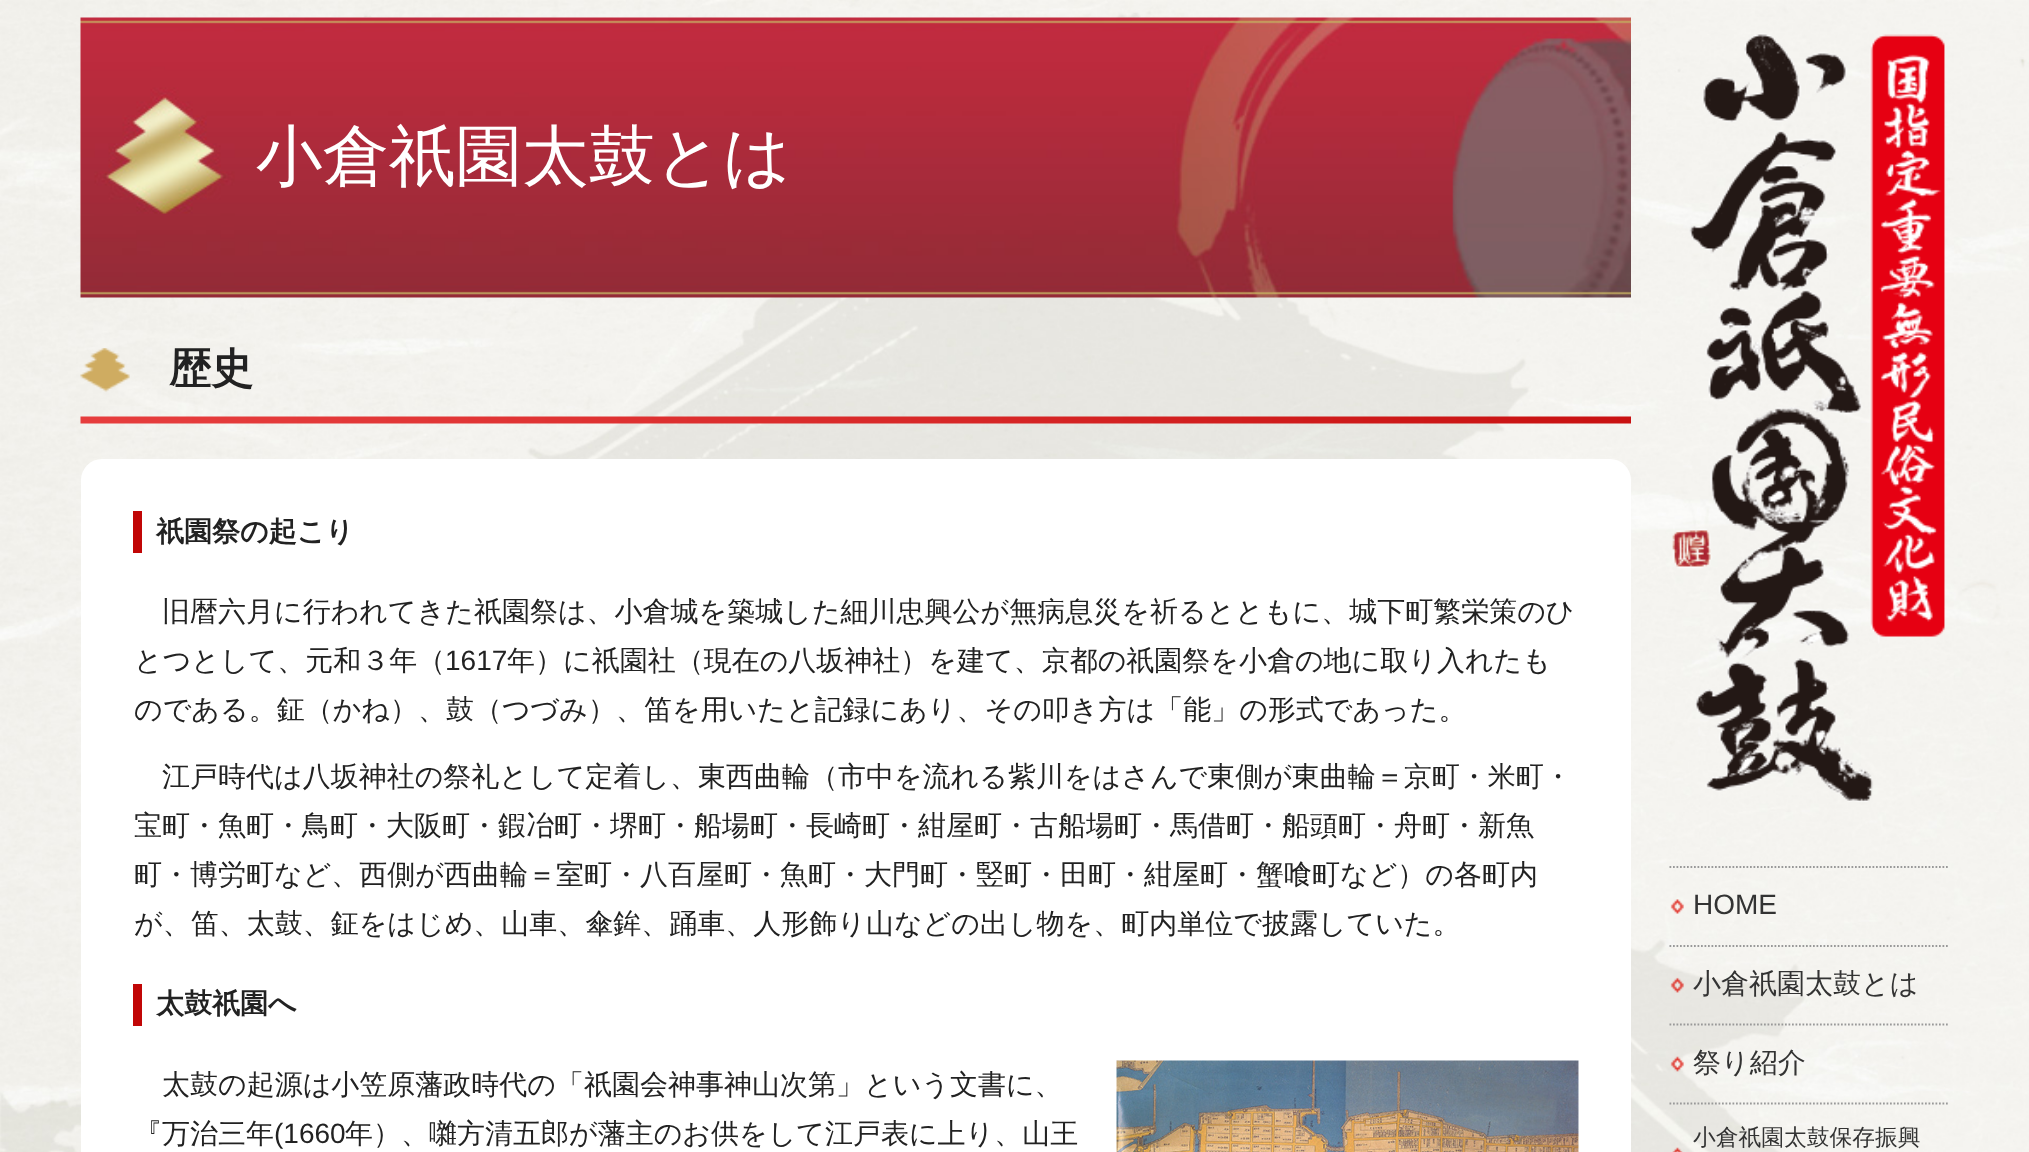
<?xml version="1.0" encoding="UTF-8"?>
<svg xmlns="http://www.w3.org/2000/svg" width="2029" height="1152">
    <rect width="100%" height="100%" fill="#FFFFFF"/>
    <image x="0" y="0" width="2029" height="1152" href="img_01.png"/>
    <image x="80" y="17" width="1551" height="281" href="img_02.png"/>
    <text x="256" y="179" font-family="WenQuanYi Zen Hei" font-size="66.5" font-weight="500" fill="#FFFFFF">小倉祇園太鼓とは</text>
    <image x="80" y="416" width="1551" height="8" href="img_03.png"/>
    <image x="80" y="348" width="50" height="44" href="img_04.png"/>
    <text x="169" y="383" font-family="WenQuanYi Zen Hei" font-size="42" font-weight="700" fill="#222222">歴史</text>
    <rect x="81" y="459" width="1550" height="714" rx="21" fill="#FFFFFF"/>
    <rect x="133" y="511" width="9" height="42" fill="#C10606"/>
    <text x="156" y="541" font-family="WenQuanYi Zen Hei" font-size="28" font-weight="700" fill="#222222">祇園祭の起こり</text>
    <text x="162" y="621" font-family="WenQuanYi Zen Hei" font-size="28" font-weight="500" fill="#222222">旧暦六月に行われてきた祇園祭は、小倉城を築城した細川忠興公が無病息災を祈るとともに、城下町繁栄策のひ</text>
    <text x="134" y="670" font-family="WenQuanYi Zen Hei" font-size="28" font-weight="500" fill="#222222">とつとして、元和３年（</text>
    <text x="445" y="670" font-family="Liberation Sans" font-size="28" fill="#222222">1617</text>
    <text x="507" y="670" font-family="WenQuanYi Zen Hei" font-size="28" font-weight="500" fill="#222222">年）に祇園社（現在の八坂神社）を建て、京都の祇園祭を小倉の地に取り入れたも</text>
    <text x="134" y="719" font-family="WenQuanYi Zen Hei" font-size="28" font-weight="500" fill="#222222">のである。鉦（かね）、鼓（つづみ）、笛を用いたと記録にあり、その叩き方は「能」の形式であった。</text>
    <text x="162" y="786" font-family="WenQuanYi Zen Hei" font-size="28" font-weight="500" fill="#222222">江戸時代は八坂神社の祭礼として定着し、東西曲輪（市中を流れる紫川をはさんで東側が東曲輪＝京町・米町・</text>
    <text font-family="WenQuanYi Zen Hei" font-size="28" font-weight="500" fill="#222222">
        <tspan x="134" y="835">宝町・魚町・鳥町・大阪町・鍜冶町・堺町・船場町・長崎町・紺屋町・古船場町・馬借町・船頭町・舟町・新魚</tspan>
        <tspan x="134" y="884">町・博労町など、西側が西曲輪＝室町・八百屋町・魚町・大門町・竪町・田町・紺屋町・蟹喰町など）の各町内</tspan>
        <tspan x="134" y="933">が、笛、太鼓、鉦をはじめ、山車、傘鉾、踊車、人形飾り山などの出し物を、町内単位で披露していた。</tspan>
    </text>
    <rect x="133" y="984" width="9" height="42" fill="#C10606"/>
    <text x="156" y="1013" font-family="WenQuanYi Zen Hei" font-size="28" font-weight="700" fill="#222222">太鼓祇園へ</text>
    <text x="162" y="1094" font-family="WenQuanYi Zen Hei" font-size="28" font-weight="500" fill="#222222">太鼓の起源は小笠原藩政時代の「祇園会神事神山次第」という文書に、</text>
    <text x="134" y="1143" font-family="WenQuanYi Zen Hei" font-size="28" font-weight="500" fill="#222222">『万治三年</text>
    <text x="274" y="1143" font-family="Liberation Sans" font-size="28" fill="#222222">(1660</text>
    <text x="345" y="1143" font-family="WenQuanYi Zen Hei" font-size="28" font-weight="500" fill="#222222">年）、囃方清五郎が藩主のお供をして江戸表に上り、山王</text>
    <image x="1116" y="1060" width="463" height="92" href="img_05.png"/>
    <image x="1672" y="33" width="273" height="769" href="img_06.png"/>
    <image x="1670" y="899" width="14" height="15" href="img_07.png"/>
    <path d="M 1669.5 867 H 1949.5" fill="none" stroke="#999999" stroke-width="1.8" stroke-dasharray="1.75 1.75"/>
    <text x="1693" y="914" font-family="Liberation Sans" font-size="28" fill="#333333">HOME</text>
    <image x="1670" y="977" width="14" height="16" href="img_08.png"/>
    <path d="M 1669.5 946 H 1949.5" fill="none" stroke="#999999" stroke-width="1.8" stroke-dasharray="1.75 1.75"/>
    <text x="1693" y="993" font-family="WenQuanYi Zen Hei" font-size="28" font-weight="500" fill="#333333">小倉祇園太鼓とは</text>
    <image x="1670" y="1056" width="14" height="16" href="img_09.png"/>
    <path d="M 1669.5 1024.5 H 1949.5" fill="none" stroke="#999999" stroke-width="1.8" stroke-dasharray="1.75 1.75"/>
    <text x="1693" y="1072" font-family="WenQuanYi Zen Hei" font-size="28" font-weight="500" fill="#333333">祭り紹介</text>
    <image x="1672" y="1147" width="11" height="5" href="img_10.png"/>
    <path d="M 1669.5 1103.5 H 1949.5" fill="none" stroke="#999999" stroke-width="1.8" stroke-dasharray="1.75 1.75"/>
    <text x="1693" y="1145" font-family="WenQuanYi Zen Hei" font-size="22.75" font-weight="500" fill="#333333">小倉祇園太鼓保存振興</text>
</svg>
